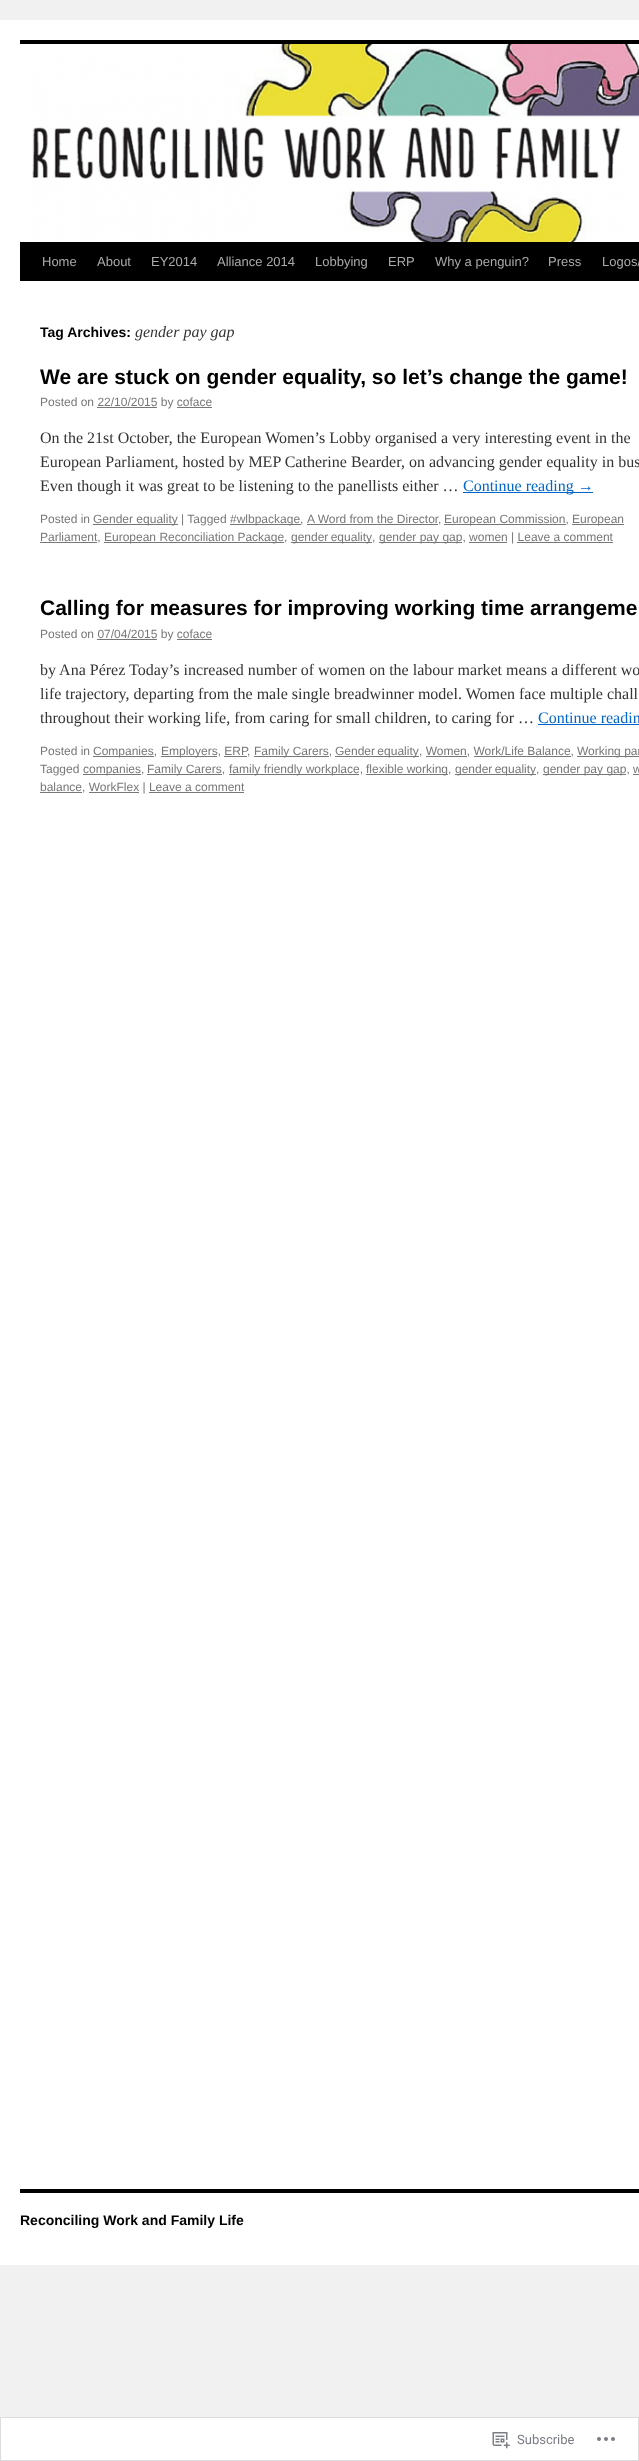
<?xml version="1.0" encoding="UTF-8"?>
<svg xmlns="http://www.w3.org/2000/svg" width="639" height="2461">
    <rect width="100%" height="100%" fill="#F1F1F1"/>
    <rect x="0" y="20" width="639" height="2245" fill="#FFFFFF"/>
    <rect x="20" y="40" width="619" height="4" fill="#000000"/>
    <rect x="20" y="242" width="619" height="39" fill="#000000"/>
    <image x="32" y="44" width="607" height="198" href="img_01.png"/>
    <text x="42" y="266" font-family="Liberation Sans" font-size="13" fill="#AAAAAA">Home</text>
    <text x="97" y="266" font-family="Liberation Sans" font-size="13" fill="#AAAAAA">About</text>
    <text x="151" y="266" font-family="Liberation Sans" font-size="13" fill="#AAAAAA">EY2014</text>
    <text x="217" y="266" font-family="Liberation Sans" font-size="13" fill="#AAAAAA">Alliance 2014</text>
    <text x="315" y="266" font-family="Liberation Sans" font-size="13" fill="#AAAAAA">Lobbying</text>
    <text x="388" y="266" font-family="Liberation Sans" font-size="13" fill="#AAAAAA">ERP</text>
    <text x="435" y="266" font-family="Liberation Sans" font-size="13" fill="#AAAAAA">Why a penguin?</text>
    <text x="548" y="266" font-family="Liberation Sans" font-size="13" fill="#AAAAAA">Press</text>
    <text x="602" y="266" font-family="Liberation Sans" font-size="13" fill="#AAAAAA">Logos/</text>
    <text x="40" y="337" font-family="Liberation Sans" font-size="14" font-weight="700" fill="#000000">Tag Archives:</text>
    <text x="135" y="337" font-family="Liberation Serif" font-size="16" font-style="italic" fill="#333333">gender pay gap</text>
    <text x="40" y="384" font-family="Liberation Sans" font-size="21" font-weight="700" fill="#000000">We are stuck on gender equality, so let’s change the game!</text>
    <text x="40" y="406" font-family="Liberation Sans" font-size="12" fill="#777777">Posted on 22/10/2015 by coface</text>
    <rect x="97" y="407" width="60" height="1" fill="#777777"/>
    <rect x="177" y="407" width="35" height="1" fill="#777777"/>
    <text font-family="Liberation Serif" font-size="16" fill="#333333">
        <tspan x="40" y="443">On the 21st October, the European Women’s Lobby organised a very interesting event in the</tspan>
        <tspan x="40" y="467">European Parliament, hosted by MEP Catherine Bearder, on advancing gender equality in bus</tspan>
        <tspan x="40" y="491">Even though it was great to be listening to the panellists either …</tspan>
    </text>
    <rect x="463" y="492" width="130" height="1" fill="#0066CC"/>
    <text x="463" y="491" font-family="Liberation Serif" font-size="16" fill="#0066CC">Continue reading →</text>
    <text x="40" y="523" font-family="Liberation Sans" font-size="12" fill="#777777">Posted in</text>
    <rect x="93" y="524" width="85" height="1" fill="#777777"/>
    <text x="93" y="523" font-family="Liberation Sans" font-size="12" fill="#777777">Gender equality | Tagged</text>
    <rect x="230" y="524" width="71" height="1" fill="#777777"/>
    <text x="230" y="523" font-family="Liberation Sans" font-size="12" fill="#777777">#wlbpackage,</text>
    <text x="307" y="523" font-family="Liberation Sans" font-size="12" fill="#777777">A Word from the Director</text>
    <text x="438" y="523" font-family="Liberation Sans" font-size="12" fill="#777777">,</text>
    <rect x="307" y="524" width="131" height="1" fill="#777777"/>
    <rect x="444" y="524" width="122" height="1" fill="#777777"/>
    <text x="444" y="523" font-family="Liberation Sans" font-size="12" fill="#777777">European Commission,</text>
    <rect x="572" y="524" width="52" height="1" fill="#777777"/>
    <text x="572" y="523" font-family="Liberation Sans" font-size="12" fill="#777777">European</text>
    <rect x="40" y="542" width="57" height="1" fill="#777777"/>
    <text x="40" y="541" font-family="Liberation Sans" font-size="12" fill="#777777">Parliament,</text>
    <rect x="104" y="542" width="180" height="1" fill="#777777"/>
    <text x="104" y="541" font-family="Liberation Sans" font-size="12" fill="#777777">European Reconciliation Package,</text>
    <rect x="291" y="542" width="81" height="1" fill="#777777"/>
    <text x="291" y="541" word-spacing="-1" font-family="Liberation Sans" font-size="12" fill="#777777">gender equality</text>
    <text x="372" y="541" font-family="Liberation Sans" font-size="12" fill="#777777">,</text>
    <rect x="379" y="542" width="83" height="1" fill="#777777"/>
    <text x="379" y="541" font-family="Liberation Sans" font-size="12" fill="#777777">gender pay gap, women | Leave a comment</text>
    <rect x="469" y="542" width="38" height="1" fill="#777777"/>
    <rect x="517" y="542" width="96" height="1" fill="#777777"/>
    <text x="40" y="615" font-family="Liberation Sans" font-size="21" font-weight="700" fill="#000000">Calling for measures for improving working time arrangeme</text>
    <text x="40" y="638" font-family="Liberation Sans" font-size="12" fill="#777777">Posted on 07/04/2015 by coface</text>
    <rect x="97" y="639" width="60" height="1" fill="#777777"/>
    <rect x="177" y="639" width="35" height="1" fill="#777777"/>
    <text font-family="Liberation Serif" font-size="16" fill="#333333">
        <tspan x="40" y="675">by Ana Pérez Today’s increased number of women on the labour market means a different wo</tspan>
        <tspan x="40" y="699">life trajectory, departing from the male single breadwinner model. Women face multiple chall</tspan>
        <tspan x="40" y="723">throughout their working life, from caring for small children, to caring for …</tspan>
    </text>
    <text x="538" y="723" font-family="Liberation Serif" font-size="16" fill="#0066CC">Continue readin</text>
    <rect x="538" y="724" width="101" height="1" fill="#0066CC"/>
    <text x="40" y="755" font-family="Liberation Sans" font-size="12" fill="#777777">Posted in</text>
    <rect x="93" y="756" width="61" height="1" fill="#777777"/>
    <text x="93" y="755" font-family="Liberation Sans" font-size="12" fill="#777777">Companies,</text>
    <rect x="161" y="756" width="56" height="1" fill="#777777"/>
    <text x="161" y="755" font-family="Liberation Sans" font-size="12" fill="#777777">Employers, ERP</text>
    <rect x="254" y="756" width="75" height="1" fill="#777777"/>
    <text x="254" y="755" font-family="Liberation Sans" font-size="12" fill="#777777">Family Carers,</text>
    <rect x="335" y="756" width="84" height="1" fill="#777777"/>
    <text x="335" y="755" word-spacing="-1" font-family="Liberation Sans" font-size="12" fill="#777777">Gender equality</text>
    <text x="419" y="755" font-family="Liberation Sans" font-size="12" fill="#777777">, Women, Work/Life Balance,</text>
    <rect x="426" y="756" width="41" height="1" fill="#777777"/>
    <rect x="474" y="756" width="97" height="1" fill="#777777"/>
    <rect x="577" y="756" width="62" height="1" fill="#777777"/>
    <text x="577" y="755" font-family="Liberation Sans" font-size="12" fill="#777777">Working par</text>
    <text x="247" y="755" font-family="Liberation Sans" font-size="12" fill="#777777">,</text>
    <rect x="224" y="756" width="23" height="1" fill="#777777"/>
    <text x="40" y="773" font-family="Liberation Sans" font-size="12" fill="#777777">Tagged</text>
    <rect x="83" y="774" width="58" height="1" fill="#777777"/>
    <text x="83" y="773" font-family="Liberation Sans" font-size="12" fill="#777777">companies,</text>
    <rect x="147" y="774" width="75" height="1" fill="#777777"/>
    <text x="147" y="773" font-family="Liberation Sans" font-size="12" fill="#777777">Family Carers,</text>
    <rect x="229" y="774" width="130" height="1" fill="#777777"/>
    <text x="229" y="773" font-family="Liberation Sans" font-size="12" fill="#777777">family friendly workplace,</text>
    <rect x="366" y="774" width="82" height="1" fill="#777777"/>
    <text x="366" y="773" font-family="Liberation Sans" font-size="12" fill="#777777">flexible working,</text>
    <rect x="455" y="774" width="81" height="1" fill="#777777"/>
    <text x="455" y="773" word-spacing="-1" font-family="Liberation Sans" font-size="12" fill="#777777">gender equality</text>
    <text x="536" y="773" font-family="Liberation Sans" font-size="12" fill="#777777">,</text>
    <rect x="543" y="774" width="83" height="1" fill="#777777"/>
    <text x="543" y="773" font-family="Liberation Sans" font-size="12" fill="#777777">gender pay gap, w</text>
    <rect x="633" y="774" width="6" height="1" fill="#777777"/>
    <rect x="40" y="792" width="42" height="1" fill="#777777"/>
    <text x="40" y="791" font-family="Liberation Sans" font-size="12" fill="#777777">balance, WorkFlex | Leave a comment</text>
    <rect x="89" y="792" width="50" height="1" fill="#777777"/>
    <rect x="149" y="792" width="95" height="1" fill="#777777"/>
    <rect x="20" y="2189" width="619" height="4" fill="#000000"/>
    <text x="20" y="2225" font-family="Liberation Sans" font-size="14" font-weight="700" fill="#000000">Reconciling Work and Family Life</text>
    <rect x="0.5" y="2417.5" width="638" height="43" fill="#FFFFFF" stroke="#DCDCDE"/>
    <image x="492" y="2432" width="18" height="17" href="img_02.png"/>
    <text x="517" y="2444" font-family="Roboto" font-size="13" fill="#7A7E84">Subscribe</text>
    <image x="597" y="2437" width="18" height="4" href="img_03.png"/>
</svg>
